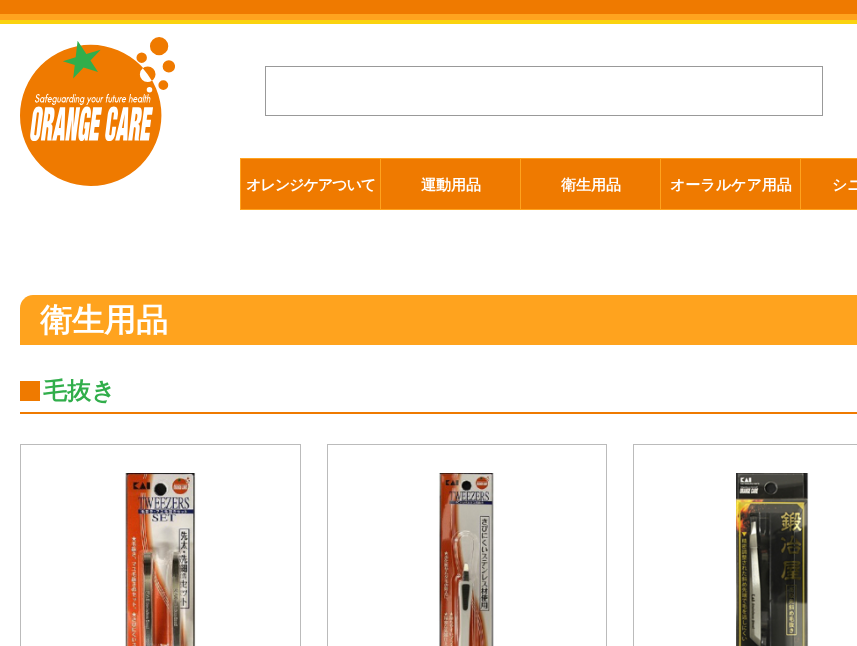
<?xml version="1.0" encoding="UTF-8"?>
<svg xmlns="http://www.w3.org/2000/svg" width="857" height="646">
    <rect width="100%" height="100%" fill="#FFFFFF"/>
    <rect x="0" y="0" width="857" height="14" fill="#EF7A00"/>
    <rect x="0" y="14" width="857" height="6" fill="#FFA31E"/>
    <rect x="0" y="20" width="857" height="4" fill="#FAD310"/>
    <image x="20" y="37" width="155" height="149" href="img_01.png"/>
    <rect x="265.5" y="66.5" width="557" height="49" fill="none" stroke="#999999"/>
    <rect x="240" y="158" width="617" height="1" fill="#FFA31E"/>
    <rect x="240" y="209" width="617" height="1" fill="#FFA31E"/>
    <rect x="240" y="158" width="1" height="52" fill="#FFA31E"/>
    <rect x="241" y="159" width="139" height="50" fill="#EF7A00"/>
    <text x="246" y="190" font-family="WenQuanYi Zen Hei" font-size="15" font-weight="700" letter-spacing="-1" fill="#FFFFFF">オレンジケアついて</text>
    <rect x="380" y="158" width="1" height="52" fill="#FFA31E"/>
    <rect x="381" y="159" width="139" height="50" fill="#EF7A00"/>
    <text x="421" y="190" font-family="WenQuanYi Zen Hei" font-size="15" font-weight="700" fill="#FFFFFF">運動用品</text>
    <rect x="520" y="158" width="1" height="52" fill="#FFA31E"/>
    <rect x="521" y="159" width="139" height="50" fill="#EF7A00"/>
    <text x="561" y="190" font-family="WenQuanYi Zen Hei" font-size="15" font-weight="700" fill="#FFFFFF">衛生用品</text>
    <rect x="660" y="158" width="1" height="52" fill="#FFA31E"/>
    <rect x="661" y="159" width="139" height="50" fill="#EF7A00"/>
    <text x="670" y="190" font-family="WenQuanYi Zen Hei" font-size="15" font-weight="700" fill="#FFFFFF">オーラルケア用品</text>
    <rect x="800" y="158" width="1" height="52" fill="#FFA31E"/>
    <rect x="801" y="159" width="56" height="50" fill="#EF7A00"/>
    <text x="832" y="190" font-family="WenQuanYi Zen Hei" font-size="15" font-weight="700" fill="#FFFFFF">シニ</text>
    <path d="M 33 295 H 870 V 332 C 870 339 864 345 857 345 H 20 V 308 C 20 301 26 295 33 295 Z" fill="#FFA31E"/>
    <text x="40" y="331" font-family="WenQuanYi Zen Hei" font-size="32" font-weight="700" fill="#FFFFFF">衛生用品</text>
    <rect x="20" y="412" width="837" height="2" fill="#EF7A00"/>
    <rect x="20" y="381" width="20" height="20" fill="#EF7A00"/>
    <text x="43" y="399" font-family="WenQuanYi Zen Hei" font-size="24" font-weight="700" fill="#31AE4B">毛抜き</text>
    <rect x="20.5" y="444.5" width="280" height="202" fill="none" stroke="#BBBBBB"/>
    <image x="125" y="473" width="72" height="173" href="img_02.png"/>
    <rect x="327.5" y="444.5" width="279" height="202" fill="none" stroke="#BBBBBB"/>
    <image x="438" y="473" width="59" height="173" href="img_03.png"/>
    <rect x="633.5" y="444.5" width="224" height="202" fill="none" stroke="#BBBBBB"/>
    <image x="736" y="473" width="73" height="173" href="img_04.png"/>
</svg>
